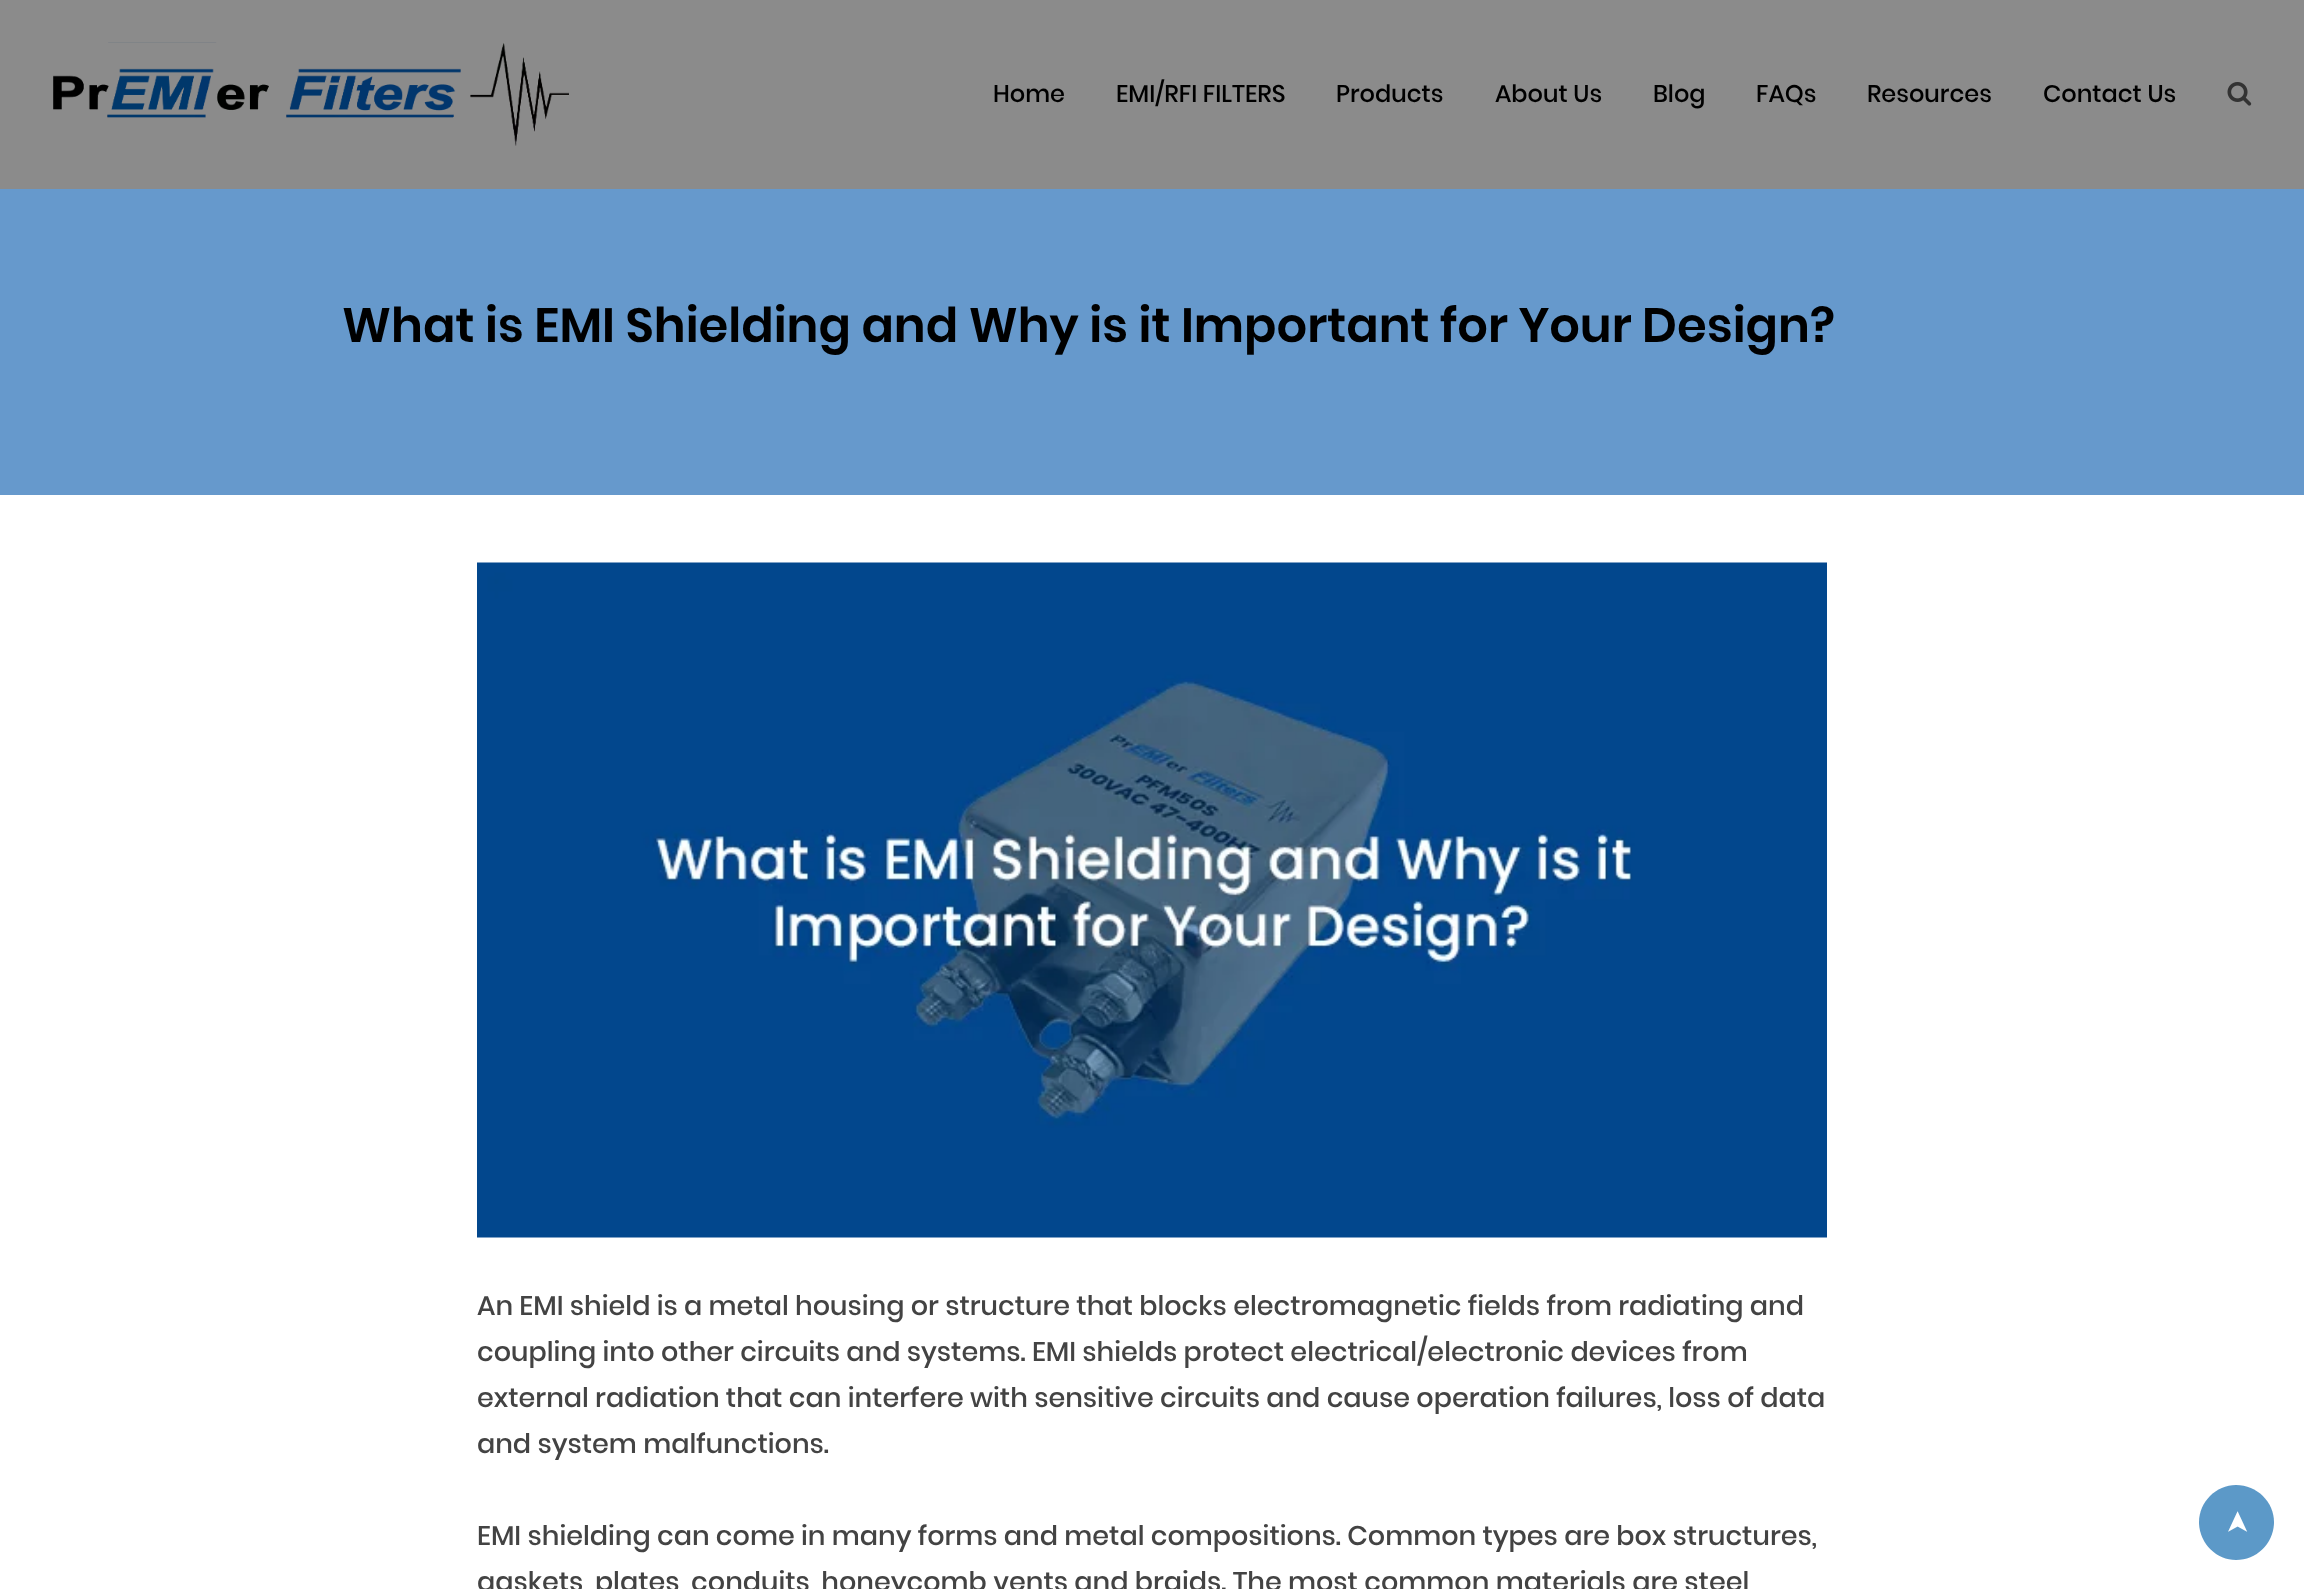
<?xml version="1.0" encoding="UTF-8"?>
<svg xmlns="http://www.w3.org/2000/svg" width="2304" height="1589">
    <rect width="100%" height="100%" fill="#FFFFFF"/>
    <rect x="0" y="0" width="2304" height="189" fill="#8B8B8B"/>
    <image x="53" y="42" width="516" height="104" href="img_01.png"/>
    <text x="993" y="102" font-family="Poppins" font-size="24" font-weight="500" fill="#000000">Home</text>
    <text x="1116" y="102" font-family="Poppins" font-size="24" font-weight="500" fill="#000000">EMI/RFI FILTERS</text>
    <text x="1336" y="102" font-family="Poppins" font-size="24" font-weight="500" fill="#000000">Products</text>
    <text x="1495" y="102" font-family="Poppins" font-size="24" font-weight="500" fill="#000000">About Us</text>
    <text x="1653" y="102" font-family="Poppins" font-size="24" font-weight="500" fill="#000000">Blog</text>
    <text x="1756" y="102" font-family="Poppins" font-size="24" font-weight="500" fill="#000000">FAQs</text>
    <text x="1867" y="102" font-family="Poppins" font-size="24" font-weight="500" fill="#000000">Resources</text>
    <text x="2043" y="102" font-family="Poppins" font-size="24" font-weight="500" fill="#000000">Contact Us</text>
    <image x="2227" y="82" width="25" height="24" href="img_02.png"/>
    <rect x="0" y="189" width="2304" height="306" fill="#6699CC"/>
    <text x="342" y="342" font-family="Poppins" font-size="48" font-weight="600" fill="#000000">What is EMI Shielding and Why is it Important for Your Design?</text>
    <image x="477" y="562" width="1350" height="676" href="img_03.png"/>
    <text font-family="Poppins" font-size="27" font-weight="500" fill="#434343">
        <tspan x="477" y="1315">An EMI shield is a metal housing or structure that blocks electromagnetic fields from radiating and</tspan>
        <tspan x="477" y="1361">coupling into other circuits and systems. EMI shields protect electrical/electronic devices from</tspan>
        <tspan x="477" y="1407">external radiation that can interfere with sensitive circuits and cause operation failures, loss of data</tspan>
        <tspan x="477" y="1453">and system malfunctions.</tspan>
    </text>
    <text font-family="Poppins" font-size="27" font-weight="500" fill="#434343">
        <tspan x="477" y="1545">EMI shielding can come in many forms and metal compositions. Common types are box structures,</tspan>
        <tspan x="477" y="1591">gaskets, plates, conduits, honeycomb vents and braids. The most common materials are steel</tspan>
    </text>
    <path d="M 2199 1522 C 2199 1502 2216 1485 2236 1485 C 2257 1485 2274 1502 2274 1522 C 2274 1543 2257 1560 2236 1560 C 2216 1560 2199 1543 2199 1522 Z" fill="#5C99C8"/>
    <text x="2247" y="1535" transform="rotate(-90 2247 1535)" font-family="DejaVu Sans" font-size="30" fill="#FFFFFF">➤</text>
</svg>
